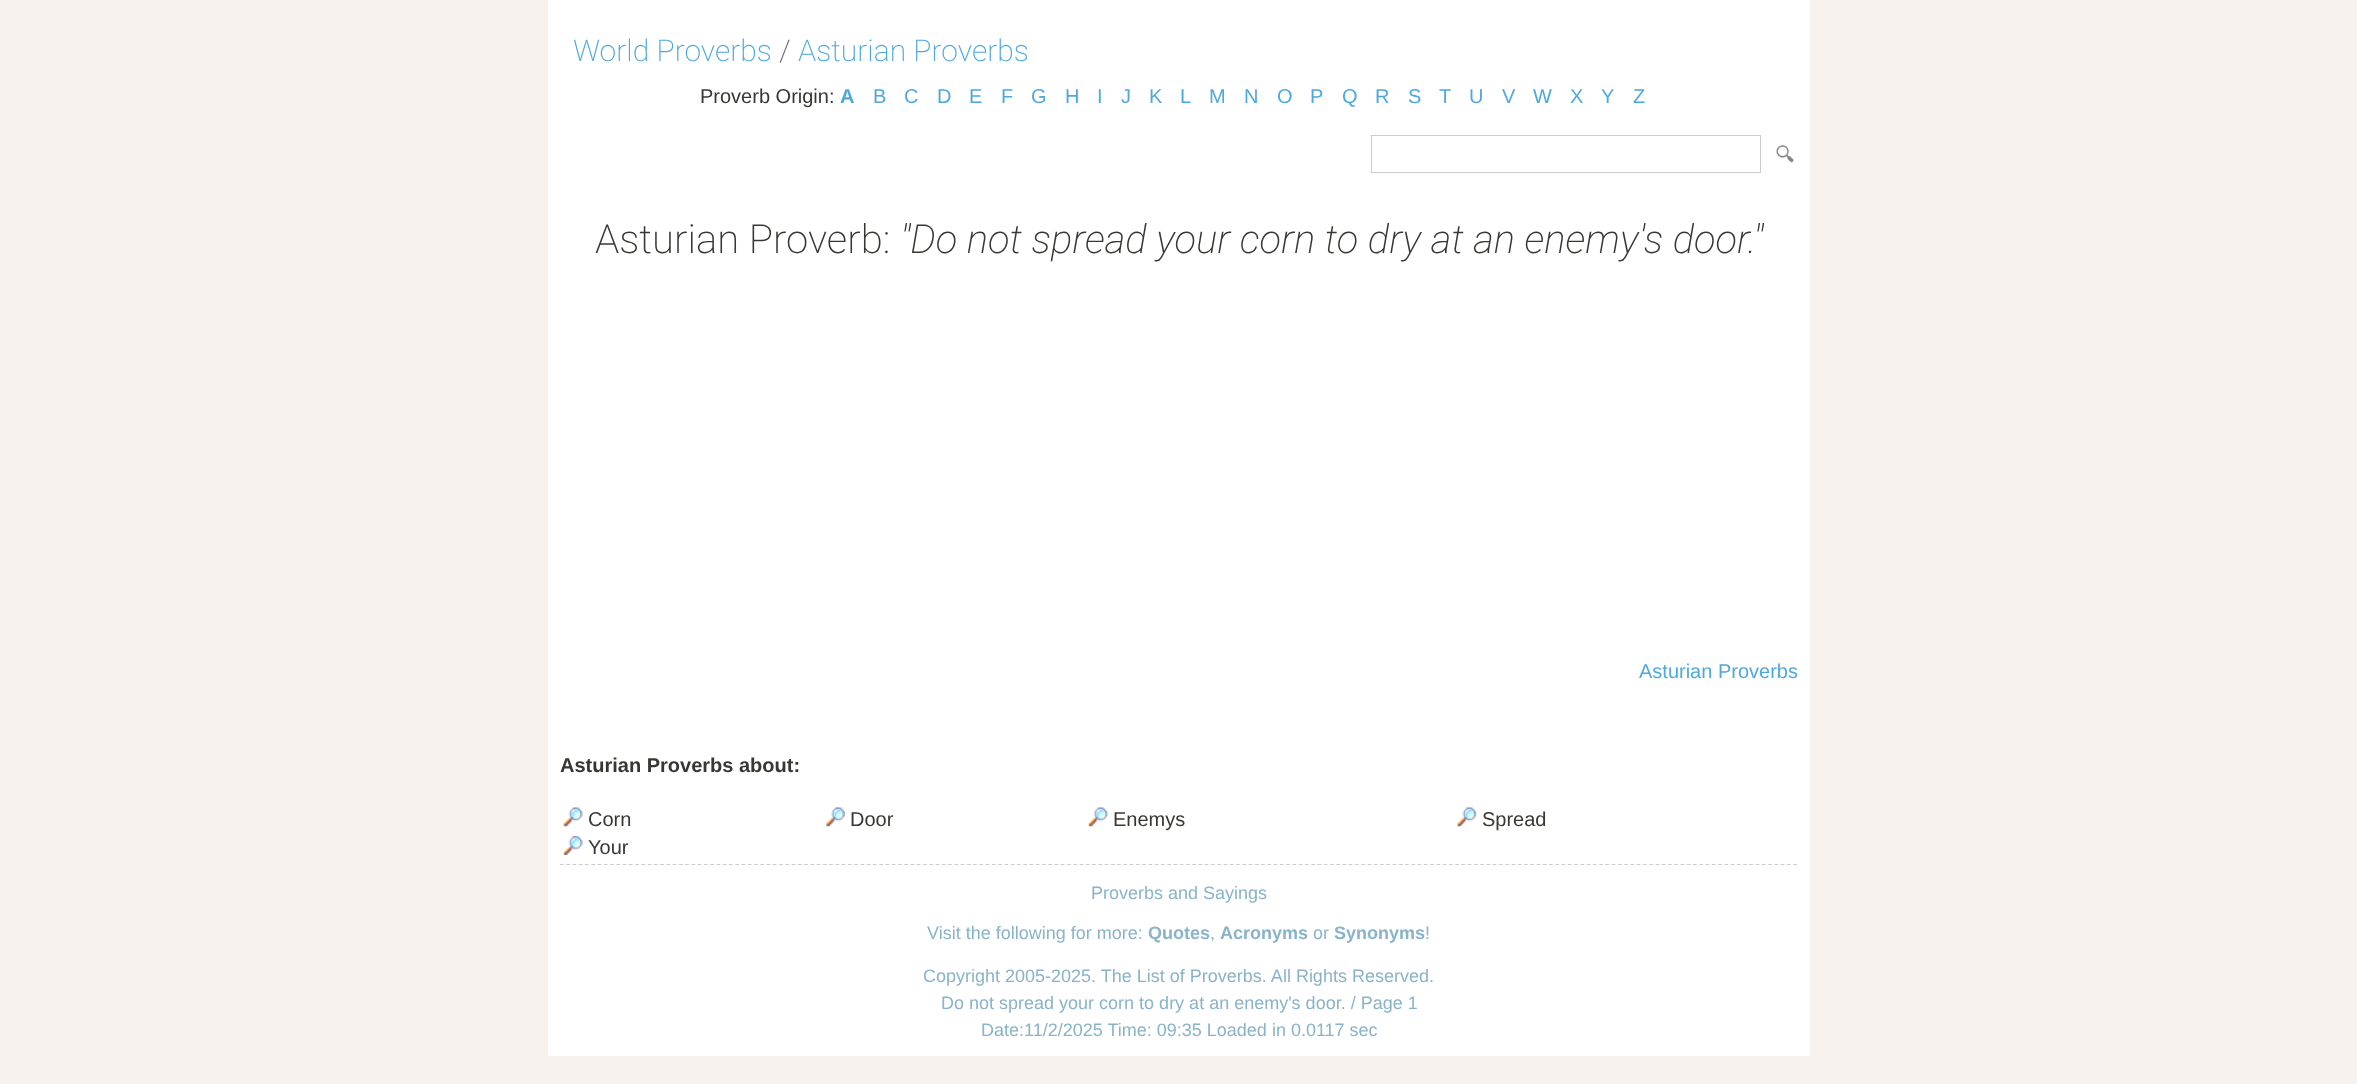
<?xml version="1.0" encoding="UTF-8"?>
<svg xmlns="http://www.w3.org/2000/svg" width="2357" height="1084">
    <defs>
        <filter id="blur1" x="-50%" y="-200%" width="200%" height="500%"><feGaussianBlur stdDeviation="0.5"/></filter>
    </defs>
    <rect width="100%" height="100%" fill="#F7F2EE"/>
    <rect x="548" y="0" width="1262" height="1056" fill="#CCCCCC" filter="url(#blur1)"/>
    <rect x="548" y="0" width="1262" height="1056" fill="#FFFFFF"/>
    <text x="573" y="61" font-family="Roboto" font-size="30" font-weight="200" fill="#4EA8DE">World Proverbs</text>
    <text x="779" y="61" font-family="Roboto" font-size="30" font-weight="200" fill="#666666">/</text>
    <text x="798" y="61" font-family="Roboto" font-size="30" font-weight="200" fill="#4EA8DE">Asturian Proverbs</text>
    <text x="700" y="103" font-family="Liberation Sans" font-size="20" fill="#393733">Proverb Origin:</text>
    <text x="840" y="103" font-family="Liberation Sans" font-size="20" font-weight="700" fill="#4EA8DE">A</text>
    <text x="873" y="103" font-family="Liberation Sans" font-size="20" fill="#4EA8DE">B</text>
    <text x="904" y="103" font-family="Liberation Sans" font-size="20" fill="#4EA8DE">C</text>
    <text x="937" y="103" font-family="Liberation Sans" font-size="20" fill="#4EA8DE">D</text>
    <text x="969" y="103" font-family="Liberation Sans" font-size="20" fill="#4EA8DE">E</text>
    <text x="1001" y="103" font-family="Liberation Sans" font-size="20" fill="#4EA8DE">F</text>
    <text x="1031" y="103" font-family="Liberation Sans" font-size="20" fill="#4EA8DE">G</text>
    <text x="1065" y="103" font-family="Liberation Sans" font-size="20" fill="#4EA8DE">H</text>
    <text x="1097" y="103" font-family="Liberation Sans" font-size="20" fill="#4EA8DE">I</text>
    <text x="1121" y="103" font-family="Liberation Sans" font-size="20" fill="#4EA8DE">J</text>
    <text x="1149" y="103" font-family="Liberation Sans" font-size="20" fill="#4EA8DE">K</text>
    <text x="1180" y="103" font-family="Liberation Sans" font-size="20" fill="#4EA8DE">L</text>
    <text x="1209" y="103" font-family="Liberation Sans" font-size="20" fill="#4EA8DE">M</text>
    <text x="1244" y="103" font-family="Liberation Sans" font-size="20" fill="#4EA8DE">N</text>
    <text x="1277" y="103" font-family="Liberation Sans" font-size="20" fill="#4EA8DE">O</text>
    <text x="1310" y="103" font-family="Liberation Sans" font-size="20" fill="#4EA8DE">P</text>
    <text x="1342" y="103" font-family="Liberation Sans" font-size="20" fill="#4EA8DE">Q</text>
    <text x="1375" y="103" font-family="Liberation Sans" font-size="20" fill="#4EA8DE">R</text>
    <text x="1408" y="103" font-family="Liberation Sans" font-size="20" fill="#4EA8DE">S</text>
    <text x="1439" y="103" font-family="Liberation Sans" font-size="20" fill="#4EA8DE">T</text>
    <text x="1469" y="103" font-family="Liberation Sans" font-size="20" fill="#4EA8DE">U</text>
    <text x="1502" y="103" font-family="Liberation Sans" font-size="20" fill="#4EA8DE">V</text>
    <text x="1533" y="103" font-family="Liberation Sans" font-size="20" fill="#4EA8DE">W</text>
    <text x="1570" y="103" font-family="Liberation Sans" font-size="20" fill="#4EA8DE">X</text>
    <text x="1601" y="103" font-family="Liberation Sans" font-size="20" fill="#4EA8DE">Y</text>
    <text x="1633" y="103" font-family="Liberation Sans" font-size="20" fill="#4EA8DE">Z</text>
    <rect x="1371.5" y="135.5" width="389" height="37" fill="none" stroke="#CCCCCC"/>
    <image x="1776" y="145" width="18" height="18" href="img_01.png"/>
    <text x="595" y="253" font-family="Roboto" font-size="40" font-weight="200" fill="#393733">Asturian Proverb:</text>
    <text x="900" y="253" font-family="Roboto" font-size="40" font-weight="200" font-style="italic" fill="#393733">"Do not spread your corn to dry at an enemy's door."</text>
    <text x="1639" y="678" font-family="Liberation Sans" font-size="20" fill="#4EA8DE">Asturian Proverbs</text>
    <text x="560" y="772" font-family="Liberation Sans" font-size="20" font-weight="700" fill="#393733">Asturian Proverbs about:</text>
    <image x="563" y="807" width="20" height="20" href="img_02.png"/>
    <text x="588" y="826" font-family="Liberation Sans" font-size="20" fill="#393733">Corn</text>
    <image x="826" y="807" width="19" height="20" href="img_03.png"/>
    <text x="850" y="826" font-family="Liberation Sans" font-size="20" fill="#393733">Door</text>
    <image x="1088" y="807" width="20" height="20" href="img_02.png"/>
    <text x="1113" y="826" font-family="Liberation Sans" font-size="20" fill="#393733">Enemys</text>
    <image x="1457" y="807" width="20" height="20" href="img_04.png"/>
    <text x="1482" y="826" font-family="Liberation Sans" font-size="20" fill="#393733">Spread</text>
    <image x="563" y="836" width="20" height="19" href="img_05.png"/>
    <text x="588" y="854" font-family="Liberation Sans" font-size="20" fill="#393733">Your</text>
    <path d="M 560 864.5 H 1797.5" fill="none" stroke="#CCCCCC" stroke-width="1.2" stroke-dasharray="3.75 2.51"/>
    <text x="1091" y="899" font-family="Liberation Sans" font-size="18" fill="#89B3C9">Proverbs and Sayings</text>
    <text x="927" y="939" font-family="Liberation Sans" font-size="18" fill="#89B3C9">Visit the following for more:</text>
    <text x="1148" y="939" font-family="Liberation Sans" font-size="18" font-weight="700" fill="#89B3C9">Quotes</text>
    <text x="1210" y="939" font-family="Liberation Sans" font-size="18" fill="#89B3C9">,</text>
    <text x="1220" y="939" font-family="Liberation Sans" font-size="18" font-weight="700" fill="#89B3C9">Acronyms</text>
    <text x="1313" y="939" font-family="Liberation Sans" font-size="18" fill="#89B3C9">or</text>
    <text x="1334" y="939" font-family="Liberation Sans" font-size="18" font-weight="700" fill="#89B3C9">Synonyms</text>
    <text x="1425" y="939" font-family="Liberation Sans" font-size="18" fill="#89B3C9">!</text>
    <text x="923" y="982" font-family="Liberation Sans" font-size="18" fill="#89B3C9">Copyright 2005-2025. The List of Proverbs. All Rights Reserved.</text>
    <text x="941" y="1009" font-family="Liberation Sans" font-size="18" fill="#89B3C9">Do not spread your corn to dry at an enemy's door. / Page 1</text>
    <text x="981" y="1036" font-family="Liberation Sans" font-size="18" fill="#89B3C9">Date:11/2/2025 Time: 09:35 Loaded in 0.0117 sec</text>
</svg>
